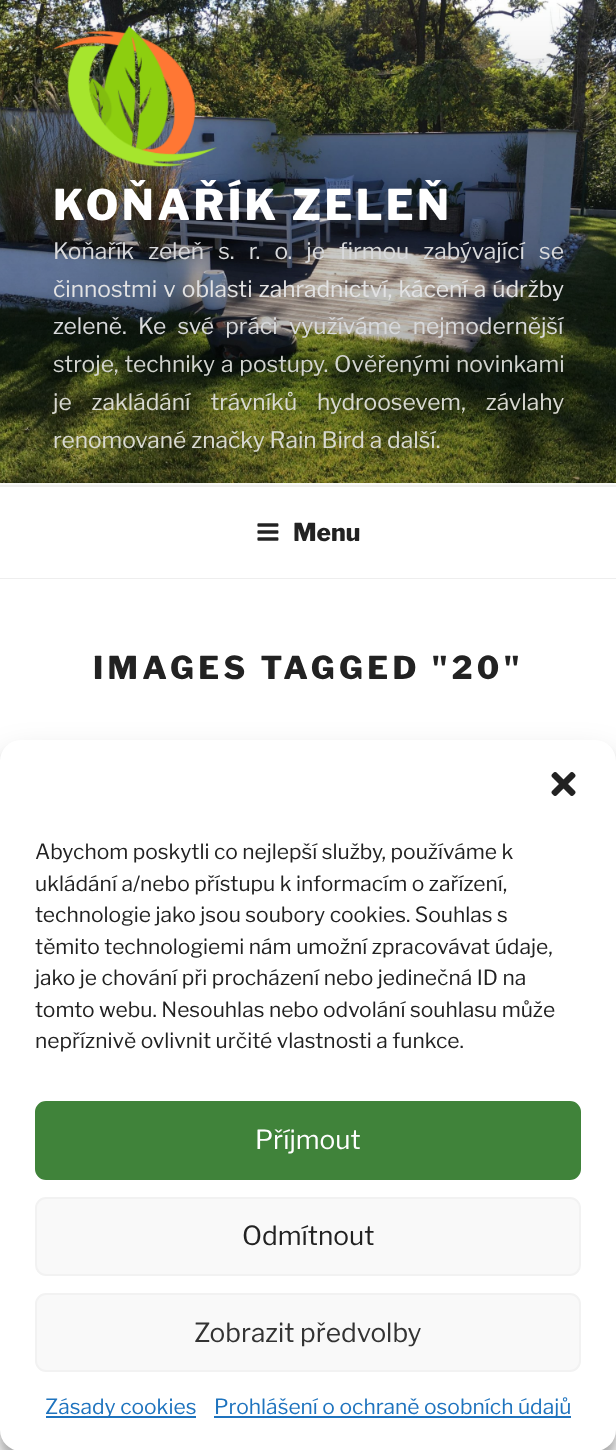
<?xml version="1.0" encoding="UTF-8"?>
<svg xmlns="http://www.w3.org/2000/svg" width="616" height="1450">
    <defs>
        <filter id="blur1" x="-50%" y="-200%" width="200%" height="500%"><feGaussianBlur stdDeviation="5"/></filter>
        <filter id="blur2" x="-50%" y="-200%" width="200%" height="500%"><feGaussianBlur stdDeviation="17.5"/></filter>
    </defs>
    <rect width="100%" height="100%" fill="#FAFAFA"/>
    <image x="0" y="0" width="616" height="483" href="img_01.png"/>
    <image x="52" y="26" width="165" height="141" href="img_02.png"/>
    <text x="53" y="220" font-family="Libre Franklin" font-size="42" font-weight="100" letter-spacing="3.4" fill="#FFFFFF">KOŇAŘÍK ZELEŇ</text>
    <text x="53" y="259" word-spacing="9.25" font-family="'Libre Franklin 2'" font-size="22.75" font-weight="100" fill="#D8D9DB">Koňařík zeleň s. r. o. je firmou zabývající se</text>
    <text x="53" y="297" word-spacing="1.25" font-family="'Libre Franklin 2'" font-size="22.75" font-weight="100" fill="#E2E2E3">činnostmi v oblasti zahradnictví, kácení a údržby</text>
    <text x="53" y="334" word-spacing="6.5" font-family="'Libre Franklin 2'" font-size="22.75" font-weight="100" fill="#D8D9DB">zeleně. Ke své práci využíváme nejmodernější</text>
    <text x="53" y="372" word-spacing="1" font-family="'Libre Franklin 2'" font-size="22.75" font-weight="100" fill="#D2D4CF">stroje, techniky a postupy. Ověřenými novinkami</text>
    <text font-family="'Libre Franklin 2'" font-size="22.75" font-weight="100" fill="#D8D9D1">
        <tspan x="53" y="410" word-spacing="15">je zakládání trávníků hydroosevem, závlahy</tspan>
        <tspan x="53" y="448">renomované značky Rain Bird a další.</tspan>
    </text>
    <rect x="0" y="487" width="616" height="91" fill="#FFFFFF"/>
    <rect x="0" y="485" width="616" height="2" fill="#EEEEEE"/>
    <rect x="0" y="578" width="616" height="1" fill="#EEEEEE"/>
    <image x="257" y="523" width="22" height="18" href="img_03.png"/>
    <text x="293" y="541" font-family="Libre Franklin" font-size="24.5" font-weight="100" fill="#222222">Menu</text>
    <rect x="0" y="579" width="616" height="871" fill="#FFFFFF"/>
    <text x="93" y="679" font-family="Libre Franklin" font-size="31.5" font-weight="100" letter-spacing="4.4" fill="#222222">IMAGES TAGGED "20"</text>
    <rect x="0" y="751" width="616" height="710" rx="21" fill="#000000" fill-opacity="0.23" filter="url(#blur1)"/>
    <rect x="0" y="758" width="616" height="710" rx="21" fill="#000000" fill-opacity="0.19" filter="url(#blur2)"/>
    <rect x="0" y="740" width="616" height="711" rx="21" fill="#FFFFFF"/>
    <image x="551" y="772" width="25" height="24" href="img_04.png"/>
    <text font-family="'Libre Franklin 2'" font-size="21" font-weight="100" fill="#222222">
        <tspan x="35" y="859">Abychom poskytli co nejlepší služby, používáme k</tspan>
        <tspan x="35" y="891">ukládání a/nebo přístupu k informacím o zařízení,</tspan>
        <tspan x="35" y="922">technologie jako jsou soubory cookies. Souhlas s</tspan>
        <tspan x="35" y="954">těmito technologiemi nám umožní zpracovávat údaje,</tspan>
        <tspan x="35" y="985">jako je chování při procházení nebo jedinečná ID na</tspan>
        <tspan x="35" y="1017">tomto webu. Nesouhlas nebo odvolání souhlasu může</tspan>
        <tspan x="35" y="1048">nepříznivě ovlivnit určité vlastnosti a funkce.</tspan>
    </text>
    <rect x="36" y="1102" width="544" height="77" rx="10" fill="#40833A" stroke="#40833A" stroke-width="2"/>
    <text x="255" y="1149" font-family="'Libre Franklin 2'" font-size="26.25" font-weight="100" fill="#FFFFFF">Příjmout</text>
    <rect x="36" y="1198" width="544" height="77" rx="10" fill="#F9F9F9" stroke="#F2F2F2" stroke-width="2"/>
    <text x="242" y="1245" font-family="'Libre Franklin 2'" font-size="26.25" font-weight="100" fill="#222222">Odmítnout</text>
    <rect x="36" y="1294" width="544" height="77" rx="10" fill="#F9F9F9" stroke="#F2F2F2" stroke-width="2"/>
    <text x="194" y="1342" font-family="'Libre Franklin 2'" font-size="26.25" font-weight="100" fill="#333333">Zobrazit předvolby</text>
    <rect x="46" y="1416" width="150" height="2" fill="#1E73BE"/>
    <text x="45" y="1414" font-family="'Libre Franklin 2'" font-size="21" font-weight="100" fill="#1E73BE">Zásady cookies</text>
    <rect x="214" y="1416" width="357" height="2" fill="#1E73BE"/>
    <text x="214" y="1414" font-family="'Libre Franklin 2'" font-size="21" font-weight="100" fill="#1E73BE">Prohlášení o ochraně osobních údajů</text>
</svg>
